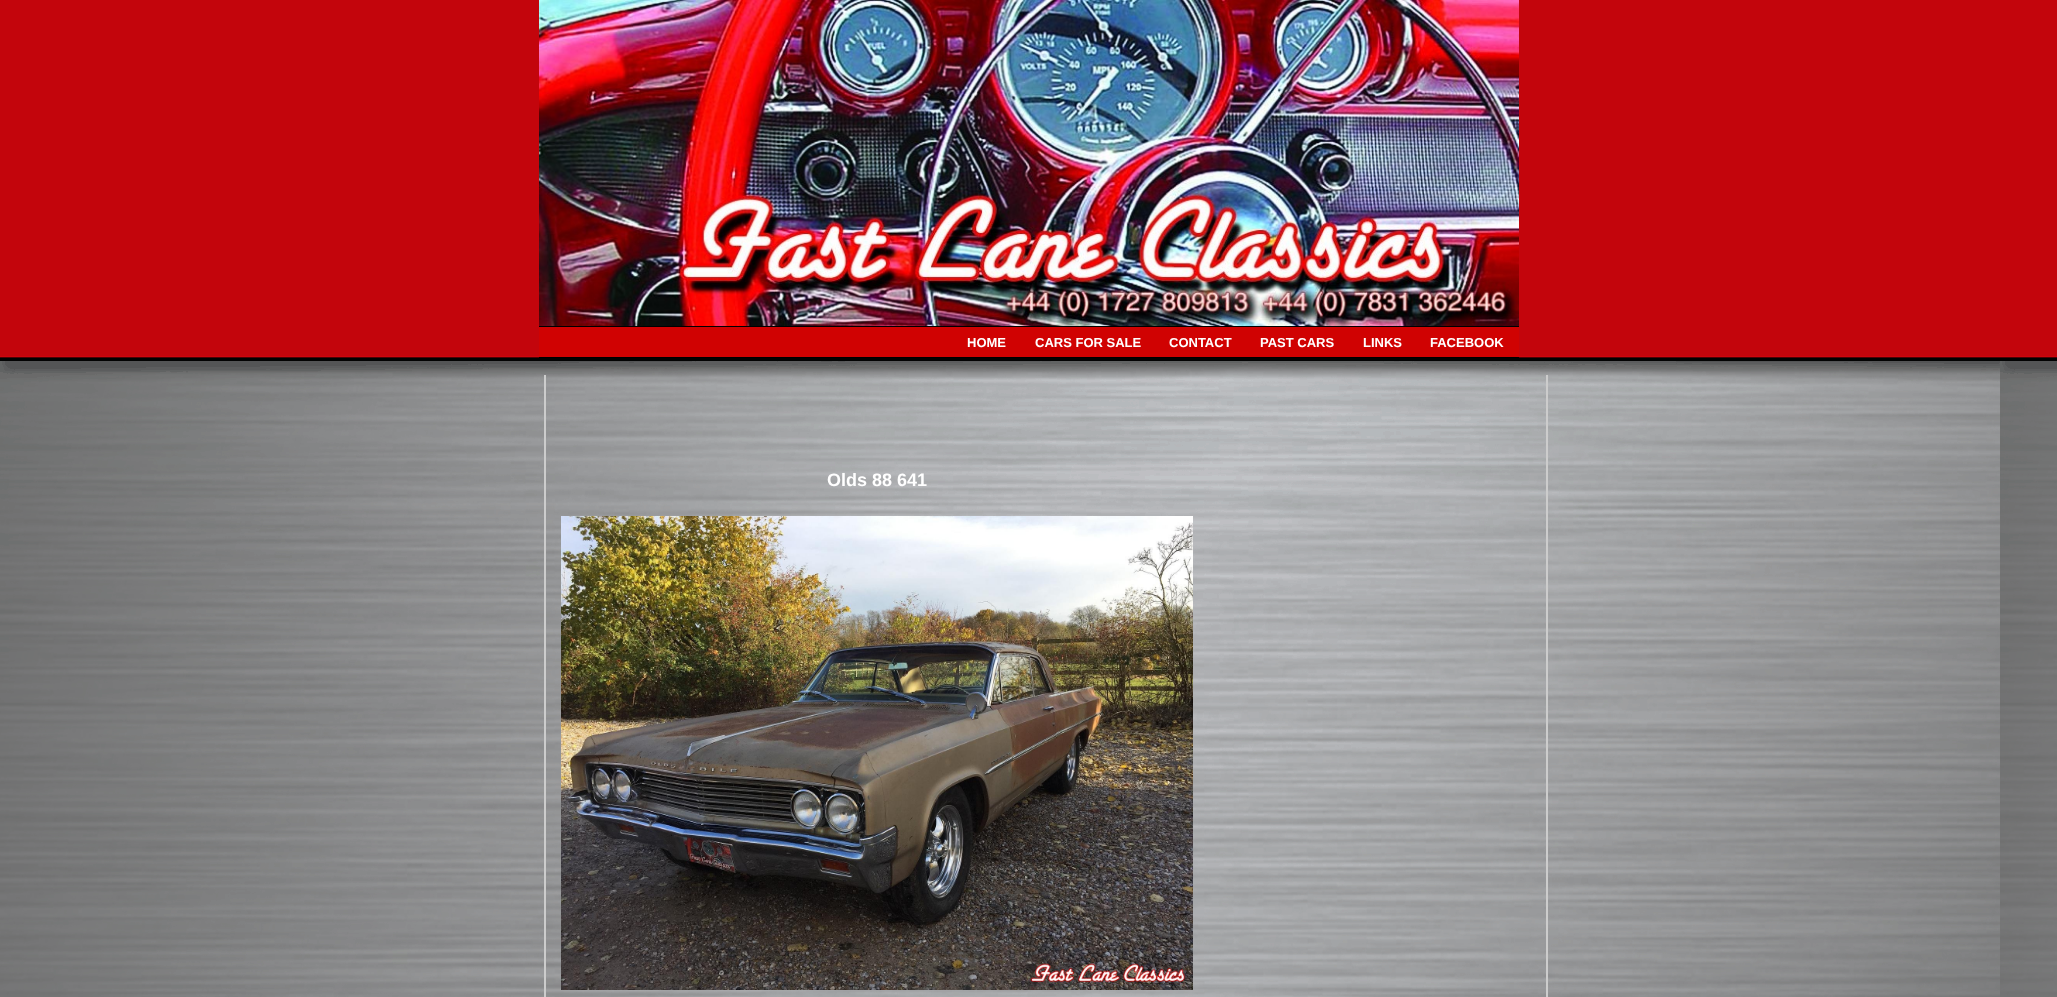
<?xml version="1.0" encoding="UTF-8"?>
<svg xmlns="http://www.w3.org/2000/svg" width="2057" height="997">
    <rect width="100%" height="100%" fill="#FFFFFF"/>
    <image x="0" y="0" width="2057" height="997" href="img_01.png"/>
    <image x="539" y="0" width="980" height="326" href="img_02.png"/>
    <rect x="539" y="327" width="980" height="30" fill="#D00202"/>
    <rect x="539" y="326" width="980" height="1" fill="#000000"/>
    <rect x="539" y="357" width="980" height="1" fill="#000000"/>
    <text x="967" y="347" font-family="Liberation Sans" font-size="13" font-weight="700" fill="#FFFFFF">HOME</text>
    <text x="1035" y="347" font-family="Liberation Sans" font-size="13" font-weight="700" fill="#FFFFFF">CARS FOR SALE</text>
    <text x="1169" y="347" font-family="Liberation Sans" font-size="13" font-weight="700" fill="#FFFFFF">CONTACT</text>
    <text x="1260" y="347" font-family="Liberation Sans" font-size="13" font-weight="700" fill="#FFFFFF">PAST CARS</text>
    <text x="1363" y="347" font-family="Liberation Sans" font-size="13" font-weight="700" fill="#FFFFFF">LINKS</text>
    <text x="1430" y="347" font-family="Liberation Sans" font-size="13" font-weight="700" fill="#FFFFFF">FACEBOOK</text>
    <rect x="1546" y="375" width="2" height="622" fill="#CCCCCC"/>
    <rect x="544" y="375" width="2" height="622" fill="#CCCCCC"/>
    <text x="827" y="486" font-family="Liberation Sans" font-size="18" font-weight="700" fill="#FFFFFF">Olds 88 641</text>
    <image x="561" y="516" width="632" height="474" href="img_03.png"/>
</svg>
